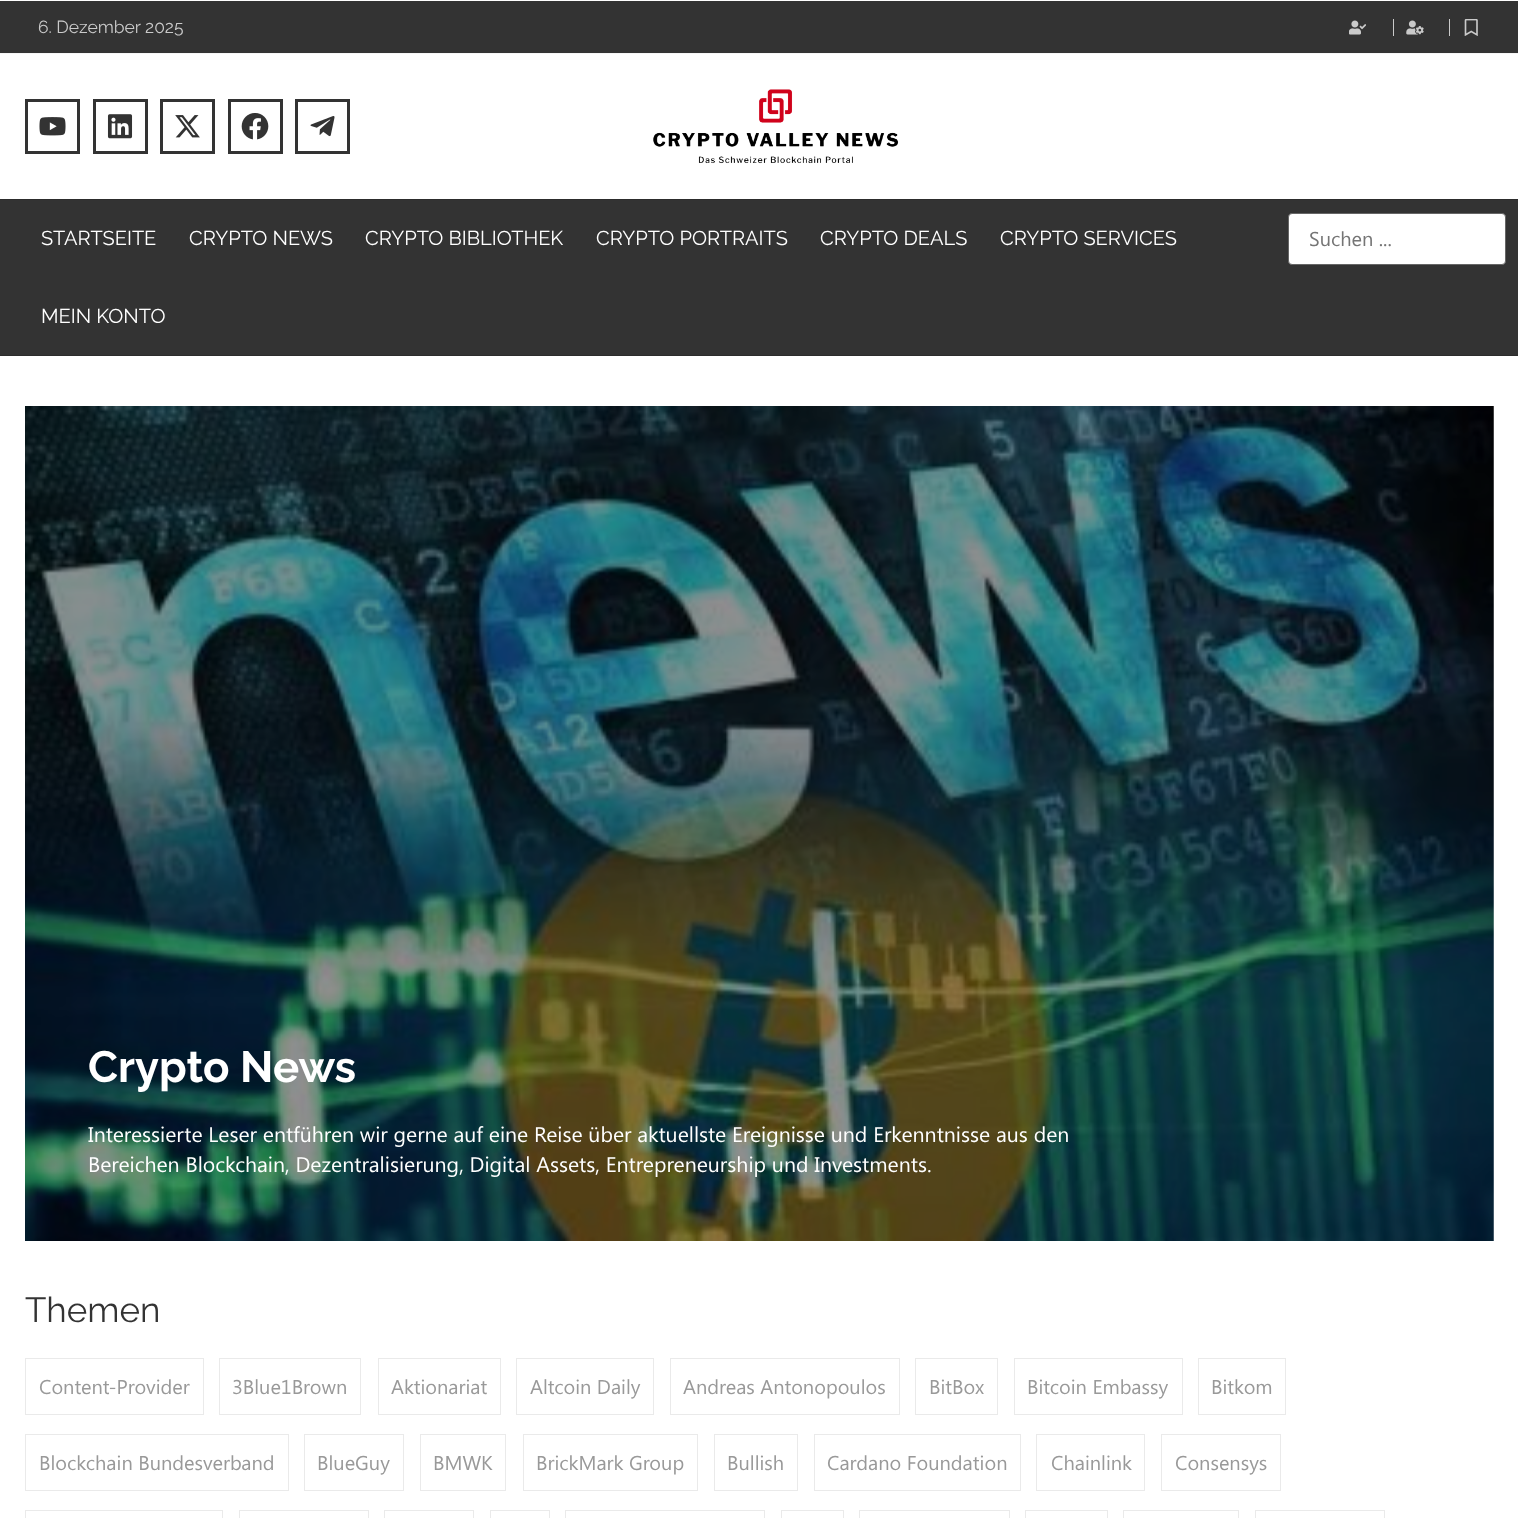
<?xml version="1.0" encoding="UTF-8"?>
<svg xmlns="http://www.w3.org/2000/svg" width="1518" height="1518">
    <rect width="100%" height="100%" fill="#FFFFFF"/>
    <rect x="0" y="1" width="1518" height="52" fill="#333333"/>
    <text x="38" y="33" font-family="Raleway" font-size="17.5" fill="#CACACA">6. Dezember 2025</text>
    <image x="1349" y="20" width="17" height="15" href="img_01.png"/>
    <rect x="1393" y="19" width="1" height="17" fill="#CACACA"/>
    <image x="1406" y="20" width="18" height="15" href="img_02.png"/>
    <rect x="1449" y="19" width="1" height="17" fill="#CACACA"/>
    <image x="1464" y="19" width="14" height="17" href="img_03.png"/>
    <rect x="0" y="53" width="1518" height="1" fill="#F5F5F5"/>
    <rect x="26.5" y="100.5" width="52" height="52" fill="none" stroke="#333333" stroke-width="3"/>
    <image x="39" y="117" width="27" height="19" href="img_04.png"/>
    <rect x="94.5" y="100.5" width="52" height="52" fill="none" stroke="#333333" stroke-width="3"/>
    <image x="107" y="114" width="26" height="25" href="img_05.png"/>
    <rect x="161.5" y="100.5" width="52" height="52" fill="none" stroke="#333333" stroke-width="3"/>
    <image x="175" y="115" width="25" height="23" href="img_06.png"/>
    <rect x="229.5" y="100.5" width="52" height="52" fill="none" stroke="#333333" stroke-width="3"/>
    <image x="241" y="113" width="28" height="27" href="img_07.png"/>
    <rect x="296.5" y="100.5" width="52" height="52" fill="none" stroke="#333333" stroke-width="3"/>
    <image x="310" y="116" width="25" height="21" href="img_08.png"/>
    <image x="653" y="89" width="246" height="75" href="img_09.png"/>
    <rect x="0" y="200" width="1518" height="155" fill="#333333"/>
    <rect x="0" y="199" width="1518" height="1" fill="#2C2C2C"/>
    <rect x="0" y="355" width="1518" height="1" fill="#2C2C2C"/>
    <text x="41" y="245" font-family="Raleway" font-size="20" fill="#FFFFFF">STARTSEITE</text>
    <text x="189" y="245" font-family="Raleway" font-size="20" fill="#FFFFFF">CRYPTO NEWS</text>
    <text x="365" y="245" font-family="Raleway" font-size="20" fill="#FFFFFF">CRYPTO BIBLIOTHEK</text>
    <text x="596" y="245" font-family="Raleway" font-size="20" fill="#FFFFFF">CRYPTO PORTRAITS</text>
    <text x="820" y="245" font-family="Raleway" font-size="20" fill="#FFFFFF">CRYPTO DEALS</text>
    <text x="1000" y="245" font-family="Raleway" font-size="20" fill="#FFFFFF">CRYPTO SERVICES</text>
    <text x="41" y="323" font-family="Raleway" font-size="20" fill="#FFFFFF">MEIN KONTO</text>
    <rect x="1288.5" y="213.5" width="217" height="51" rx="3.5" fill="#FFFFFF" stroke="#666666"/>
    <text x="1309" y="246" font-family="Segoe UI" font-size="20" fill="#757575">Suchen ...</text>
    <image x="25" y="406" width="1469" height="835" href="img_10.png"/>
    <text x="88" y="1082" font-family="Raleway" font-size="43.75" font-weight="700" fill="#FFFFFF">Crypto News</text>
    <text font-family="Segoe UI" font-size="21.25" fill="#FFFFFF">
        <tspan x="88" y="1142">Interessierte Leser entführen wir gerne auf eine Reise über aktuellste Ereignisse und Erkenntnisse aus den</tspan>
        <tspan x="88" y="1172">Bereichen Blockchain, Dezentralisierung, Digital Assets, Entrepreneurship und Investments.</tspan>
    </text>
    <text x="25" y="1322" font-family="Raleway" font-size="35" fill="#333333">Themen</text>
    <rect x="25.5" y="1358.5" width="178" height="56" fill="none" stroke="#EAEAEA"/>
    <text x="39" y="1394" font-family="Segoe UI" font-size="20" fill="#999999">Content-Provider</text>
    <rect x="219.5" y="1358.5" width="141" height="56" fill="none" stroke="#EAEAEA"/>
    <text x="232" y="1394" font-family="Segoe UI" font-size="20" fill="#999999">3Blue1Brown</text>
    <rect x="378.5" y="1358.5" width="122" height="56" fill="none" stroke="#EAEAEA"/>
    <text x="391" y="1394" font-family="Segoe UI" font-size="20" fill="#999999">Aktionariat</text>
    <rect x="516.5" y="1358.5" width="137" height="56" fill="none" stroke="#EAEAEA"/>
    <text x="530" y="1394" font-family="Segoe UI" font-size="20" fill="#999999">Altcoin Daily</text>
    <rect x="670.5" y="1358.5" width="229" height="56" fill="none" stroke="#EAEAEA"/>
    <text x="683" y="1394" font-family="Segoe UI" font-size="20" fill="#999999">Andreas Antonopoulos</text>
    <rect x="915.5" y="1358.5" width="82" height="56" fill="none" stroke="#EAEAEA"/>
    <text x="929" y="1394" font-family="Segoe UI" font-size="20" fill="#999999">BitBox</text>
    <rect x="1014.5" y="1358.5" width="168" height="56" fill="none" stroke="#EAEAEA"/>
    <text x="1027" y="1394" font-family="Segoe UI" font-size="20" fill="#999999">Bitcoin Embassy</text>
    <rect x="1198.5" y="1358.5" width="87" height="56" fill="none" stroke="#EAEAEA"/>
    <text x="1211" y="1394" font-family="Segoe UI" font-size="20" fill="#999999">Bitkom</text>
    <rect x="25.5" y="1434.5" width="263" height="56" fill="none" stroke="#EAEAEA"/>
    <text x="39" y="1470" font-family="Segoe UI" font-size="20" fill="#999999">Blockchain Bundesverband</text>
    <rect x="304.5" y="1434.5" width="99" height="56" fill="none" stroke="#EAEAEA"/>
    <text x="317" y="1470" font-family="Segoe UI" font-size="20" fill="#999999">BlueGuy</text>
    <rect x="420.5" y="1434.5" width="85" height="56" fill="none" stroke="#EAEAEA"/>
    <text x="433" y="1470" font-family="Segoe UI" font-size="20" fill="#999999">BMWK</text>
    <rect x="523.5" y="1434.5" width="174" height="56" fill="none" stroke="#EAEAEA"/>
    <text x="536" y="1470" font-family="Segoe UI" font-size="20" fill="#999999">BrickMark Group</text>
    <rect x="714.5" y="1434.5" width="83" height="56" fill="none" stroke="#EAEAEA"/>
    <text x="727" y="1470" font-family="Segoe UI" font-size="20" fill="#999999">Bullish</text>
    <rect x="814.5" y="1434.5" width="206" height="56" fill="none" stroke="#EAEAEA"/>
    <text x="827" y="1470" font-family="Segoe UI" font-size="20" fill="#999999">Cardano Foundation</text>
    <rect x="1036.5" y="1434.5" width="108" height="56" fill="none" stroke="#EAEAEA"/>
    <text x="1051" y="1470" font-family="Segoe UI" font-size="20" fill="#999999">Chainlink</text>
    <rect x="1161.5" y="1434.5" width="119" height="56" fill="none" stroke="#EAEAEA"/>
    <text x="1175" y="1470" font-family="Segoe UI" font-size="20" fill="#999999">Consensys</text>
    <rect x="25.5" y="1510.5" width="197" height="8" fill="none" stroke="#EAEAEA"/>
    <rect x="239.5" y="1510.5" width="129" height="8" fill="none" stroke="#EAEAEA"/>
    <rect x="384.5" y="1510.5" width="89" height="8" fill="none" stroke="#EAEAEA"/>
    <rect x="490.5" y="1510.5" width="59" height="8" fill="none" stroke="#EAEAEA"/>
    <rect x="565.5" y="1510.5" width="199" height="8" fill="none" stroke="#EAEAEA"/>
    <rect x="781.5" y="1510.5" width="62" height="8" fill="none" stroke="#EAEAEA"/>
    <rect x="859.5" y="1510.5" width="150" height="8" fill="none" stroke="#EAEAEA"/>
    <rect x="1025.5" y="1510.5" width="82" height="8" fill="none" stroke="#EAEAEA"/>
    <rect x="1123.5" y="1510.5" width="115" height="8" fill="none" stroke="#EAEAEA"/>
    <rect x="1255.5" y="1510.5" width="129" height="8" fill="none" stroke="#EAEAEA"/>
</svg>
